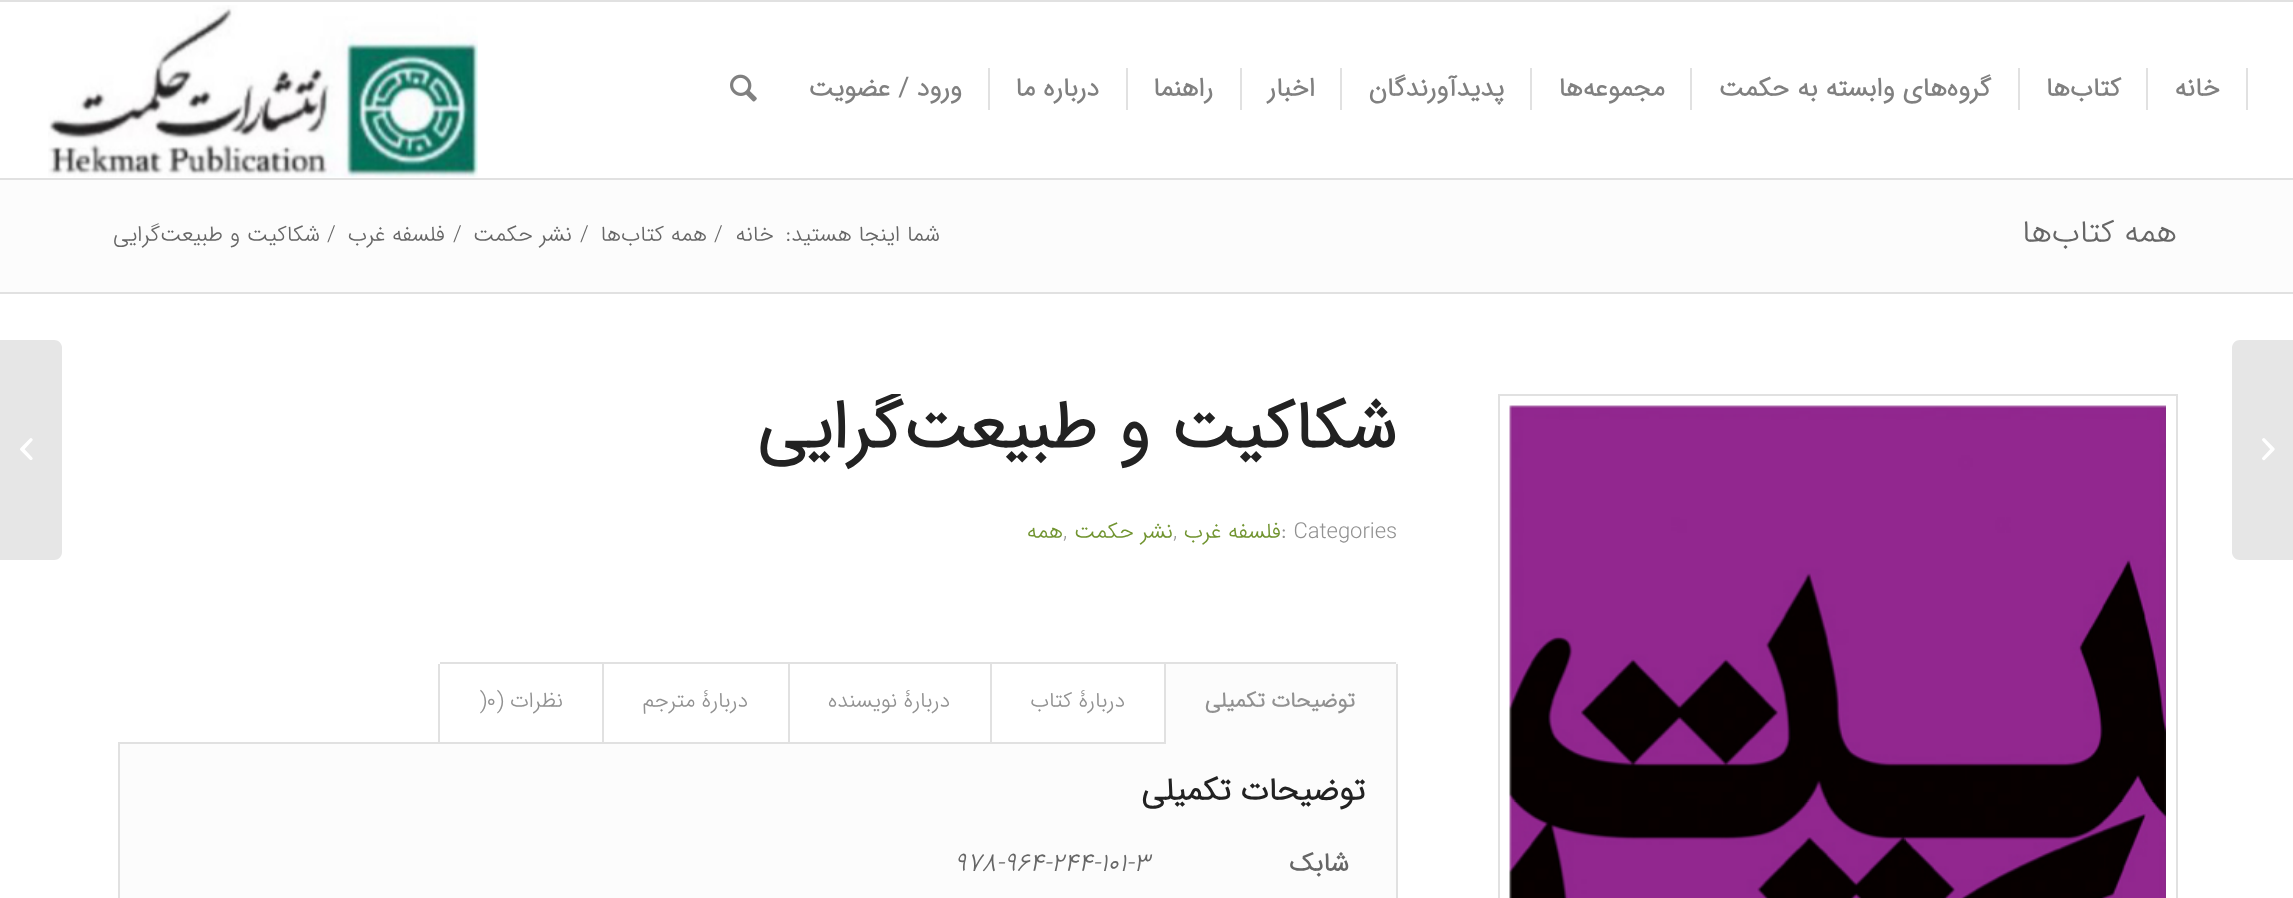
<?xml version="1.0" encoding="UTF-8"?>
<svg xmlns="http://www.w3.org/2000/svg" width="2293" height="898">
    <defs>
        <clipPath id="clip1"><rect x="118" y="394" width="1280" height="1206"/></clipPath>
    </defs>
    <rect width="100%" height="100%" fill="#FFFFFF"/>
    <rect x="0" y="0" width="2293" height="2" fill="#E1E1E1"/>
    <rect x="0" y="178" width="2293" height="2" fill="#E1E1E1"/>
    <text x="2220" y="96" font-family="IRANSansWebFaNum" font-size="26" font-weight="700" direction="rtl" fill="#808080">خانه</text>
    <rect x="2246" y="68" width="2" height="42" fill="#E1E1E1"/>
    <text x="2121" y="96" font-family="IRANSansWebFaNum" font-size="26" font-weight="700" direction="rtl" fill="#808080">کتاب‌ها</text>
    <rect x="2146" y="68" width="2" height="42" fill="#E1E1E1"/>
    <text x="1991" y="96" font-family="IRANSansWebFaNum" font-size="26" font-weight="700" direction="rtl" fill="#808080">گروه‌های وابسته به حکمت</text>
    <rect x="2018" y="68" width="2" height="42" fill="#E1E1E1"/>
    <text x="1665" y="96" font-family="IRANSansWebFaNum" font-size="26" font-weight="700" direction="rtl" fill="#808080">مجموعه‌ها</text>
    <rect x="1690" y="68" width="2" height="42" fill="#E1E1E1"/>
    <text x="1504" y="96" font-family="IRANSansWebFaNum" font-size="26" font-weight="700" direction="rtl" fill="#808080">پدیدآورندگان</text>
    <rect x="1530" y="68" width="2" height="42" fill="#E1E1E1"/>
    <text x="1315" y="96" font-family="IRANSansWebFaNum" font-size="26" font-weight="700" direction="rtl" fill="#808080">اخبار</text>
    <rect x="1340" y="68" width="2" height="42" fill="#E1E1E1"/>
    <text x="1213" y="96" font-family="IRANSansWebFaNum" font-size="26" font-weight="700" direction="rtl" fill="#808080">راهنما</text>
    <rect x="1240" y="68" width="2" height="42" fill="#E1E1E1"/>
    <text x="1099" y="96" font-family="IRANSansWebFaNum" font-size="26" font-weight="700" direction="rtl" fill="#808080">درباره ما</text>
    <rect x="1126" y="68" width="2" height="42" fill="#E1E1E1"/>
    <text x="962" y="96" font-family="IRANSansWebFaNum" font-size="26" font-weight="700" direction="rtl" fill="#808080">ورود / عضویت</text>
    <rect x="988" y="68" width="2" height="42" fill="#E1E1E1"/>
    <image x="730" y="74" width="27" height="28" href="img_01.png"/>
    <image x="48" y="5" width="430" height="173" href="img_02.png"/>
    <path d="M 2240 340 H 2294 V 560 H 2240 C 2235.5 560 2232 556.5 2232 552 V 348 C 2232 343.5 2235.5 340 2240 340 Z" fill="#E6E6E6"/>
    <image x="2262" y="438" width="13" height="23" href="img_03.png"/>
    <rect x="0" y="180" width="2293" height="112" fill="#FCFCFC"/>
    <text x="2177" y="242" font-family="IRANSansWebFaNum" font-size="32" font-weight="300" direction="rtl" fill="#666666">همه کتاب‌ها</text>
    <text x="940" y="241" font-family="IRANSansWebFaNum" font-size="22" font-weight="300" direction="rtl" fill="#666666">شما اینجا هستید:</text>
    <text x="774" y="241" font-family="IRANSansWebFaNum" font-size="22" font-weight="300" direction="rtl" fill="#666666">خانه</text>
    <text x="714" y="241" font-family="IRANSansWebFaNum" font-size="22" font-weight="300" fill="#666666">/</text>
    <text x="707" y="241" font-family="IRANSansWebFaNum" font-size="22" font-weight="300" direction="rtl" fill="#666666">همه کتاب‌ها</text>
    <text x="580" y="241" font-family="IRANSansWebFaNum" font-size="22" font-weight="300" fill="#666666">/</text>
    <text x="572" y="241" font-family="IRANSansWebFaNum" font-size="22" font-weight="300" direction="rtl" fill="#666666">نشر حکمت</text>
    <text x="453" y="241" font-family="IRANSansWebFaNum" font-size="22" font-weight="300" fill="#666666">/</text>
    <text x="445" y="241" font-family="IRANSansWebFaNum" font-size="22" font-weight="300" direction="rtl" fill="#666666">فلسفه غرب</text>
    <text x="327" y="241" font-family="IRANSansWebFaNum" font-size="22" font-weight="300" fill="#666666">/</text>
    <text x="320" y="241" font-family="IRANSansWebFaNum" font-size="22" font-weight="300" direction="rtl" fill="#666666">شکاکیت و طبیعت‌گرایی</text>
    <rect x="0" y="292" width="2293" height="2" fill="#E1E1E1"/>
    <rect x="1499" y="395" width="678" height="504" fill="none" stroke="#E1E1E1" stroke-width="2"/>
    <image x="1509" y="405" width="657" height="493" href="img_04.png"/>
    <g clip-path="url(#clip1)">
        <text x="1397" y="448" font-family="IRANSansWebFaNum" font-size="68" font-weight="700" direction="rtl" fill="#222222">شکاکیت و طبیعت‌گرایی</text>
    </g>
    <text x="1281" y="538" font-family="IRANSansWebFaNum" font-size="22" font-weight="300" fill="#919191">: Categories</text>
    <text x="1281" y="538" font-family="IRANSansWebFaNum" font-size="22" font-weight="300" direction="rtl" fill="#719430">فلسفه غرب</text>
    <text x="1173" y="538" font-family="IRANSansWebFaNum" font-size="22" font-weight="300" direction="rtl" fill="#719430">نشر حکمت</text>
    <text x="1063" y="538" font-family="IRANSansWebFaNum" font-size="22" font-weight="300" direction="rtl" fill="#719430">همه</text>
    <text x="1173" y="538" font-family="IRANSansWebFaNum" font-size="22" font-weight="300" fill="#919191">,</text>
    <text x="1063" y="538" font-family="IRANSansWebFaNum" font-size="22" font-weight="300" fill="#919191">,</text>
    <rect x="119" y="743" width="1278" height="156" fill="#FCFCFC" stroke="#E1E1E1" stroke-width="2"/>
    <rect x="1166" y="662" width="232" height="82" fill="#FCFCFC"/>
    <rect x="990" y="662" width="176" height="2" fill="#E1E1E1"/>
    <rect x="1164" y="662" width="232" height="2" fill="#E1E1E1"/>
    <rect x="1396" y="664" width="2" height="80" fill="#E1E1E1"/>
    <rect x="1164" y="662" width="2" height="82" fill="#E1E1E1"/>
    <text x="1355" y="707" font-family="IRANSansWebFaNum" font-size="21.5" font-weight="700" direction="rtl" fill="#919191">توضیحات تکمیلی</text>
    <rect x="990" y="662" width="2" height="82" fill="#E1E1E1"/>
    <text x="1125" y="707" font-family="IRANSansWebFaNum" font-size="21.5" font-weight="300" direction="rtl" fill="#919191">دربارۀ کتاب</text>
    <rect x="788" y="662" width="204" height="2" fill="#E1E1E1"/>
    <rect x="788" y="662" width="2" height="82" fill="#E1E1E1"/>
    <text x="950" y="707" font-family="IRANSansWebFaNum" font-size="21.5" font-weight="300" direction="rtl" fill="#919191">دربارۀ نویسنده</text>
    <rect x="602" y="662" width="188" height="2" fill="#E1E1E1"/>
    <rect x="602" y="662" width="2" height="82" fill="#E1E1E1"/>
    <text x="748" y="707" font-family="IRANSansWebFaNum" font-size="21.5" font-weight="300" direction="rtl" fill="#919191">دربارۀ مترجم</text>
    <rect x="440" y="662" width="164" height="2" fill="#E1E1E1"/>
    <rect x="438" y="664" width="2" height="80" fill="#E1E1E1"/>
    <text x="563" y="707" font-family="IRANSansWebFaNum" font-size="21.5" font-weight="300" direction="rtl" fill="#919191">نظرات (</text>
    <text x="479" y="707" font-family="IRANSansWebFaNum" font-size="21.5" font-weight="300" fill="#919191">)۰</text>
    <text x="1365" y="800" font-family="IRANSansWebFaNum" font-size="32" font-weight="700" direction="rtl" fill="#222222">توضیحات تکمیلی</text>
    <text x="1349" y="871" font-family="IRANSansWebFaNum" font-size="26" font-weight="700" direction="rtl" fill="#666666">شابک</text>
    <text x="954" y="871" font-family="IRANSansWebFaNum" font-size="26" font-weight="300" font-style="italic" fill="#666666">۹۷۸-۹۶۴-۲۴۴-۱۰۱-۳</text>
    <path d="M 0 340 H 54 C 58.5 340 62 343.5 62 348 V 552 C 62 556.5 58.5 560 54 560 H 0 Z" fill="#E6E6E6"/>
    <image x="20" y="438" width="13" height="22" href="img_05.png"/>
</svg>
